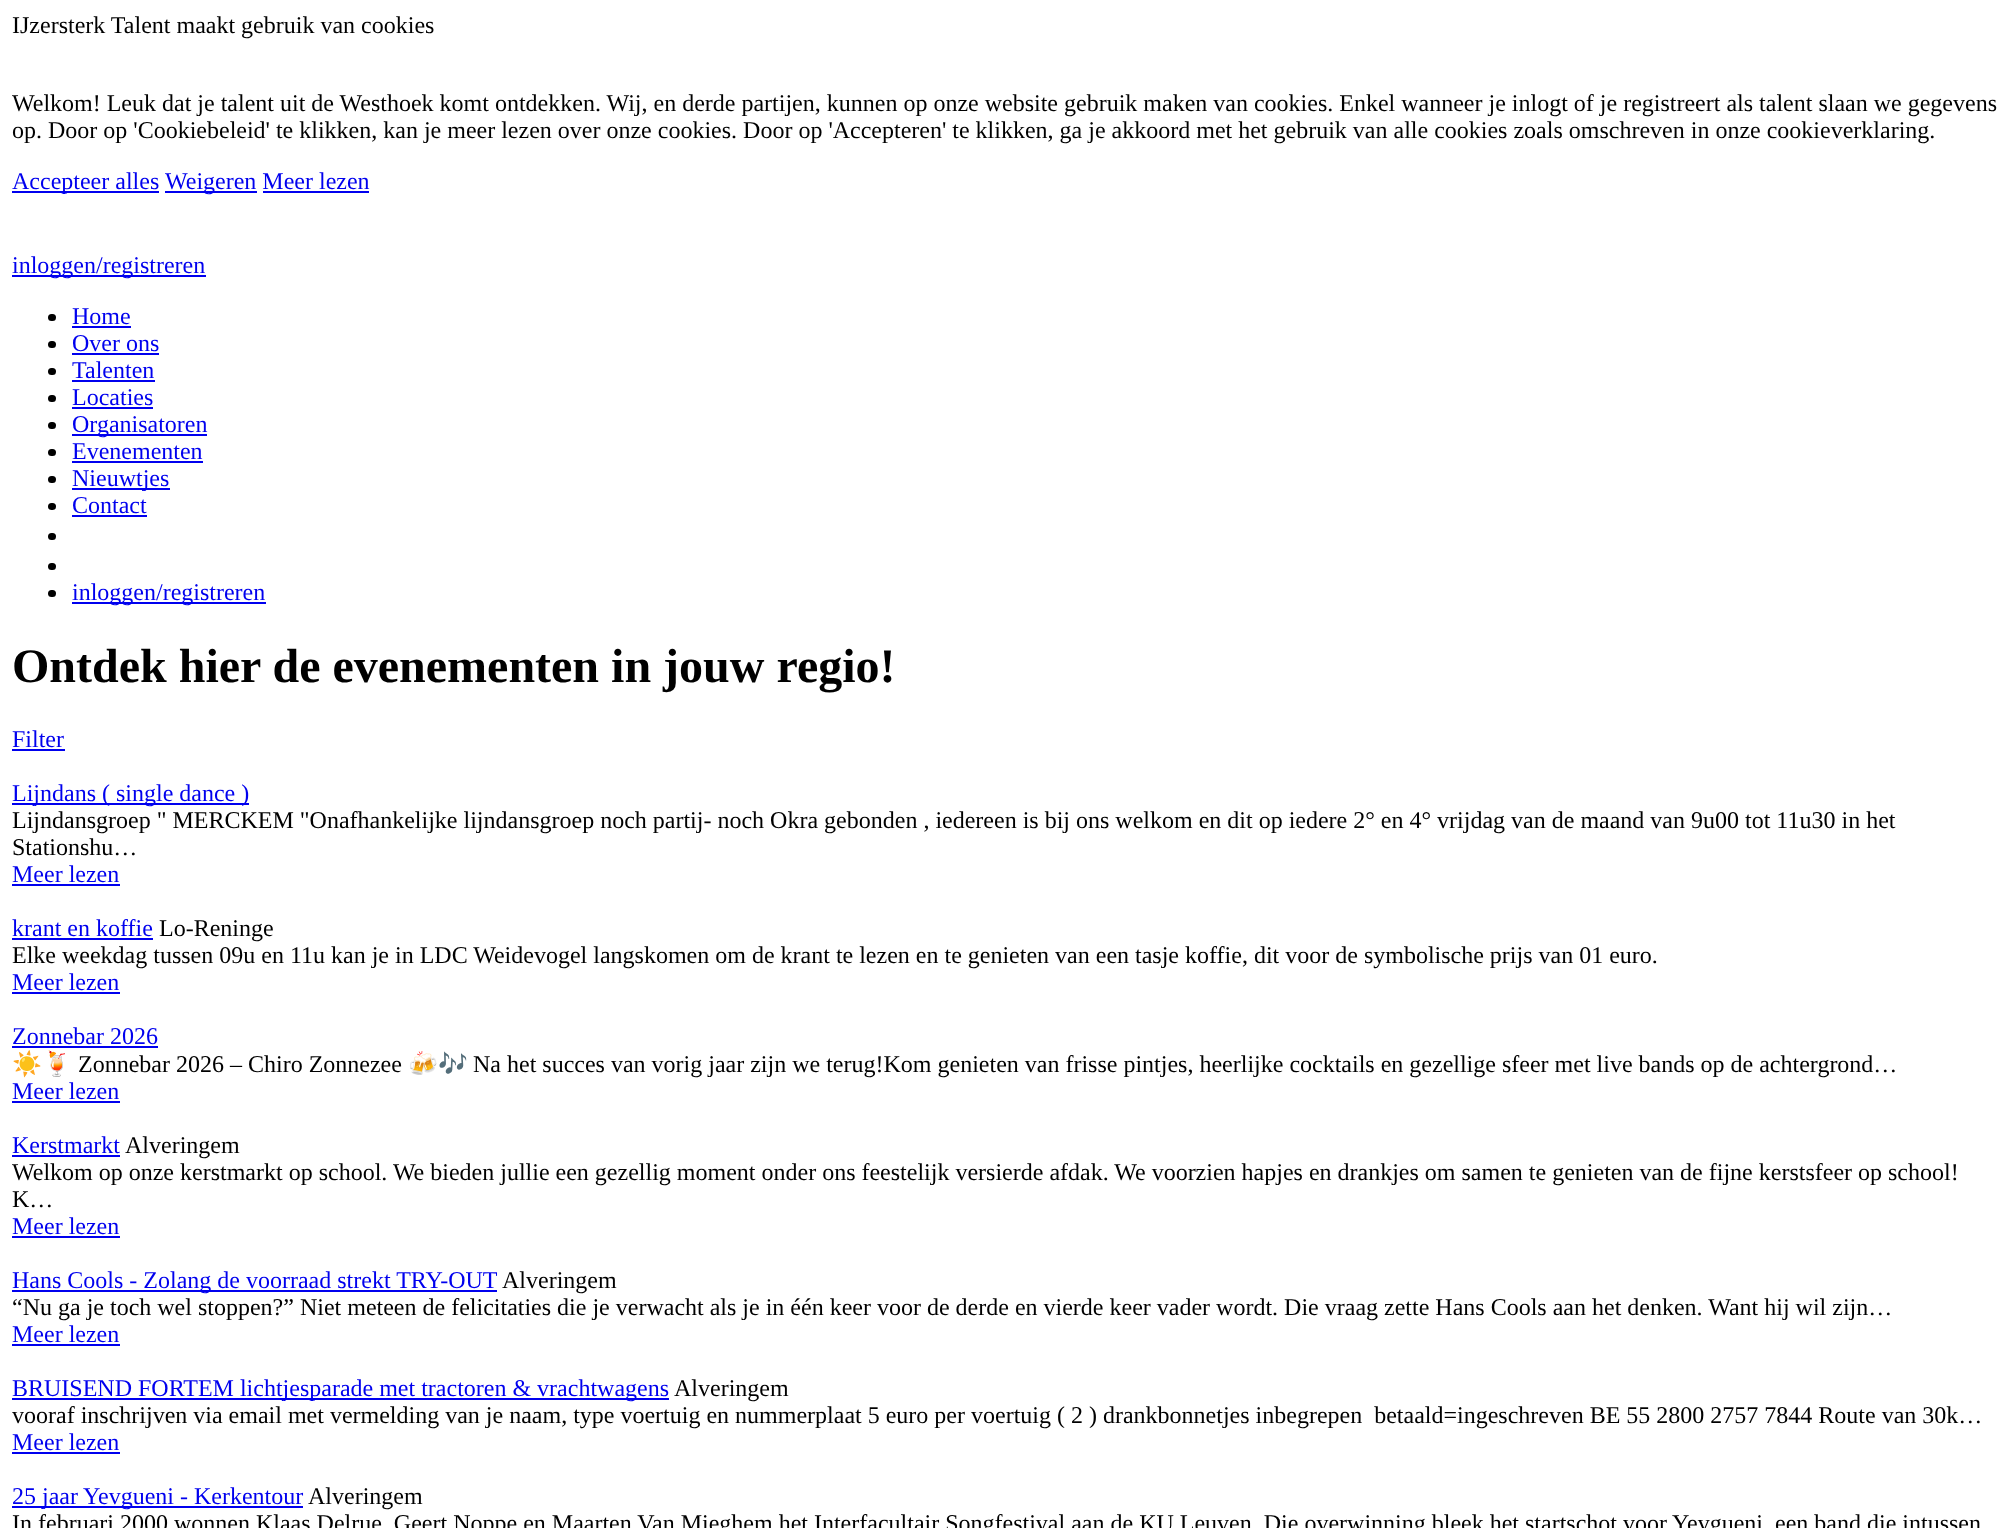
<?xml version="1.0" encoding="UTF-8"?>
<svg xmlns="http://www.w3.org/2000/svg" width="2011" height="1528">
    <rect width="100%" height="100%" fill="#FFFFFF"/>
    <text x="12" y="33" font-family="Liberation Serif" font-size="24" fill="#000000">IJzersterk Talent maakt gebruik van cookies</text>
    <text font-family="Liberation Serif" font-size="24" fill="#000000">
        <tspan x="12" y="111">Welkom! Leuk dat je talent uit de Westhoek komt ontdekken. Wij, en derde partijen, kunnen op onze website gebruik maken van cookies. Enkel wanneer je inlogt of je registreert als talent slaan we gegevens</tspan>
        <tspan x="12" y="138">op. Door op 'Cookiebeleid' te klikken, kan je meer lezen over onze cookies. Door op 'Accepteren' te klikken, ga je akkoord met het gebruik van alle cookies zoals omschreven in onze cookieverklaring.</tspan>
    </text>
    <rect x="12" y="191" width="147" height="2" fill="#0000EE"/>
    <text x="12" y="189" font-family="Liberation Serif" font-size="24" fill="#0000EE">Accepteer alles</text>
    <rect x="165" y="191" width="92" height="2" fill="#0000EE"/>
    <text x="165" y="189" font-family="Liberation Serif" font-size="24" fill="#0000EE">Weigeren Meer lezen</text>
    <rect x="263" y="191" width="106" height="2" fill="#0000EE"/>
    <rect x="12" y="275" width="194" height="2" fill="#0000EE"/>
    <text x="12" y="273" font-family="Liberation Serif" font-size="24" fill="#0000EE">inloggen/registreren</text>
    <rect x="48" y="314" width="8" height="7" rx="3.5" fill="#000000"/>
    <text x="72" y="324" font-family="Liberation Serif" font-size="24" fill="#0000EE">Home</text>
    <rect x="72" y="326" width="59" height="2" fill="#0000EE"/>
    <rect x="48" y="341" width="8" height="7" rx="3.5" fill="#000000"/>
    <text x="72" y="351" font-family="Liberation Serif" font-size="24" fill="#0000EE">Over ons</text>
    <rect x="72" y="353" width="87" height="2" fill="#0000EE"/>
    <rect x="48" y="368" width="8" height="7" rx="3.5" fill="#000000"/>
    <text x="72" y="378" font-family="Liberation Serif" font-size="24" fill="#0000EE">Talenten</text>
    <rect x="72" y="380" width="83" height="2" fill="#0000EE"/>
    <rect x="48" y="395" width="8" height="7" rx="3.5" fill="#000000"/>
    <text x="72" y="405" font-family="Liberation Serif" font-size="24" fill="#0000EE">Locaties</text>
    <rect x="72" y="407" width="81" height="2" fill="#0000EE"/>
    <rect x="48" y="422" width="8" height="7" rx="3.5" fill="#000000"/>
    <rect x="72" y="434" width="135" height="2" fill="#0000EE"/>
    <text x="72" y="432" font-family="Liberation Serif" font-size="24" fill="#0000EE">Organisatoren</text>
    <rect x="48" y="449" width="8" height="7" rx="3.5" fill="#000000"/>
    <text x="72" y="459" font-family="Liberation Serif" font-size="24" fill="#0000EE">Evenementen</text>
    <rect x="72" y="461" width="131" height="2" fill="#0000EE"/>
    <rect x="48" y="476" width="8" height="7" rx="3.5" fill="#000000"/>
    <rect x="72" y="488" width="98" height="2" fill="#0000EE"/>
    <text x="72" y="486" font-family="Liberation Serif" font-size="24" fill="#0000EE">Nieuwtjes</text>
    <rect x="48" y="503" width="8" height="7" rx="3.5" fill="#000000"/>
    <text x="72" y="513" font-family="Liberation Serif" font-size="24" fill="#0000EE">Contact</text>
    <rect x="72" y="515" width="75" height="2" fill="#0000EE"/>
    <rect x="48" y="533" width="8" height="7" rx="3.5" fill="#000000"/>
    <rect x="48" y="563" width="8" height="7" rx="3.5" fill="#000000"/>
    <rect x="48" y="590" width="8" height="7" rx="3.5" fill="#000000"/>
    <rect x="72" y="602" width="194" height="2" fill="#0000EE"/>
    <text x="72" y="600" font-family="Liberation Serif" font-size="24" fill="#0000EE">inloggen/registreren</text>
    <text x="12" y="682" font-family="Liberation Serif" font-size="48" font-weight="700" fill="#000000">Ontdek hier de evenementen in jouw regio!</text>
    <text x="12" y="747" font-family="Liberation Serif" font-size="24" fill="#0000EE">Filter</text>
    <rect x="12" y="749" width="53" height="2" fill="#0000EE"/>
    <rect x="12" y="803" width="237" height="2" fill="#0000EE"/>
    <text x="12" y="801" font-family="Liberation Serif" font-size="24" fill="#0000EE">Lijndans ( single dance )</text>
    <text font-family="Liberation Serif" font-size="24" fill="#000000">
        <tspan x="12" y="828">Lijndansgroep " MERCKEM "Onafhankelijke lijndansgroep noch partij- noch Okra gebonden , iedereen is bij ons welkom en dit op iedere 2° en 4° vrijdag van de maand van 9u00 tot 11u30 in het</tspan>
        <tspan x="12" y="855">Stationshu…</tspan>
    </text>
    <text x="12" y="882" font-family="Liberation Serif" font-size="24" fill="#0000EE">Meer lezen</text>
    <rect x="12" y="884" width="108" height="2" fill="#0000EE"/>
    <text x="12" y="936" font-family="Liberation Serif" font-size="24" fill="#0000EE">krant en koffie</text>
    <rect x="12" y="938" width="141" height="2" fill="#0000EE"/>
    <text x="159" y="936" font-family="Liberation Serif" font-size="24" fill="#000000">Lo-Reninge</text>
    <text x="12" y="963" font-family="Liberation Serif" font-size="24" fill="#000000">Elke weekdag tussen 09u en 11u kan je in LDC Weidevogel langskomen om de krant te lezen en te genieten van een tasje koffie, dit voor de symbolische prijs van 01 euro.</text>
    <text x="12" y="990" font-family="Liberation Serif" font-size="24" fill="#0000EE">Meer lezen</text>
    <rect x="12" y="992" width="108" height="2" fill="#0000EE"/>
    <text x="12" y="1044" font-family="Liberation Serif" font-size="24" fill="#0000EE">Zonnebar 2026</text>
    <rect x="12" y="1046" width="146" height="2" fill="#0000EE"/>
    <text x="12" y="1072" font-family="Noto Color Emoji" font-size="24" fill="#000000">☀️🍹</text>
    <text x="78" y="1072" font-family="Liberation Serif" font-size="24" fill="#000000">Zonnebar 2026 – Chiro Zonnezee</text>
    <text x="408" y="1072" font-family="Noto Color Emoji" font-size="24" fill="#000000">🍻🎶</text>
    <text x="473" y="1072" font-family="Liberation Serif" font-size="24" fill="#000000">Na het succes van vorig jaar zijn we terug!Kom genieten van frisse pintjes, heerlijke cocktails en gezellige sfeer met live bands op de achtergrond…</text>
    <text x="12" y="1099" font-family="Liberation Serif" font-size="24" fill="#0000EE">Meer lezen</text>
    <rect x="12" y="1101" width="108" height="2" fill="#0000EE"/>
    <text x="12" y="1153" font-family="Liberation Serif" font-size="24" fill="#0000EE">Kerstmarkt</text>
    <rect x="12" y="1155" width="108" height="2" fill="#0000EE"/>
    <text x="125" y="1153" font-family="Liberation Serif" font-size="24" fill="#000000">Alveringem</text>
    <text font-family="Liberation Serif" font-size="24" fill="#000000">
        <tspan x="12" y="1180">Welkom op onze kerstmarkt op school. We bieden jullie een gezellig moment onder ons feestelijk versierde afdak. We voorzien hapjes en drankjes om samen te genieten van de fijne kerstsfeer op school!</tspan>
        <tspan x="12" y="1207">K…</tspan>
    </text>
    <text x="12" y="1234" font-family="Liberation Serif" font-size="24" fill="#0000EE">Meer lezen</text>
    <rect x="12" y="1236" width="108" height="2" fill="#0000EE"/>
    <rect x="12" y="1290" width="485" height="2" fill="#0000EE"/>
    <text x="12" y="1288" font-family="Liberation Serif" font-size="24" fill="#0000EE">Hans Cools - Zolang de voorraad strekt TRY-OUT</text>
    <text x="502" y="1288" font-family="Liberation Serif" font-size="24" fill="#000000">Alveringem</text>
    <text x="12" y="1315" font-family="Liberation Serif" font-size="24" fill="#000000">“Nu ga je toch wel stoppen?” Niet meteen de felicitaties die je verwacht als je in één keer voor de derde en vierde keer vader wordt. Die vraag zette Hans Cools aan het denken. Want hij wil zijn…</text>
    <text x="12" y="1342" font-family="Liberation Serif" font-size="24" fill="#0000EE">Meer lezen</text>
    <rect x="12" y="1344" width="108" height="2" fill="#0000EE"/>
    <rect x="12" y="1398" width="657" height="2" fill="#0000EE"/>
    <text x="12" y="1396" font-family="Liberation Serif" font-size="24" fill="#0000EE">BRUISEND FORTEM lichtjesparade met tractoren &amp; vrachtwagens</text>
    <text x="674" y="1396" font-family="Liberation Serif" font-size="24" fill="#000000">Alveringem</text>
    <text x="12" y="1423" font-family="Liberation Serif" font-size="24" fill="#000000" xml:space="preserve">vooraf inschrijven via email met vermelding van je naam, type voertuig en nummerplaat 5 euro per voertuig ( 2 ) drankbonnetjes inbegrepen  betaald=ingeschreven BE 55 2800 2757 7844 Route van 30k…</text>
    <text x="12" y="1450" font-family="Liberation Serif" font-size="24" fill="#0000EE">Meer lezen</text>
    <rect x="12" y="1452" width="108" height="2" fill="#0000EE"/>
    <rect x="12" y="1506" width="291" height="2" fill="#0000EE"/>
    <text x="12" y="1504" font-family="Liberation Serif" font-size="24" fill="#0000EE">25 jaar Yevgueni - Kerkentour</text>
    <text x="308" y="1504" font-family="Liberation Serif" font-size="24" fill="#000000">Alveringem</text>
    <text x="12" y="1531" font-family="Liberation Serif" font-size="24" fill="#000000">In februari 2000 wonnen Klaas Delrue, Geert Noppe en Maarten Van Mieghem het Interfacultair Songfestival aan de KU Leuven. Die overwinning bleek het startschot voor Yevgueni, een band die intussen</text>
</svg>
